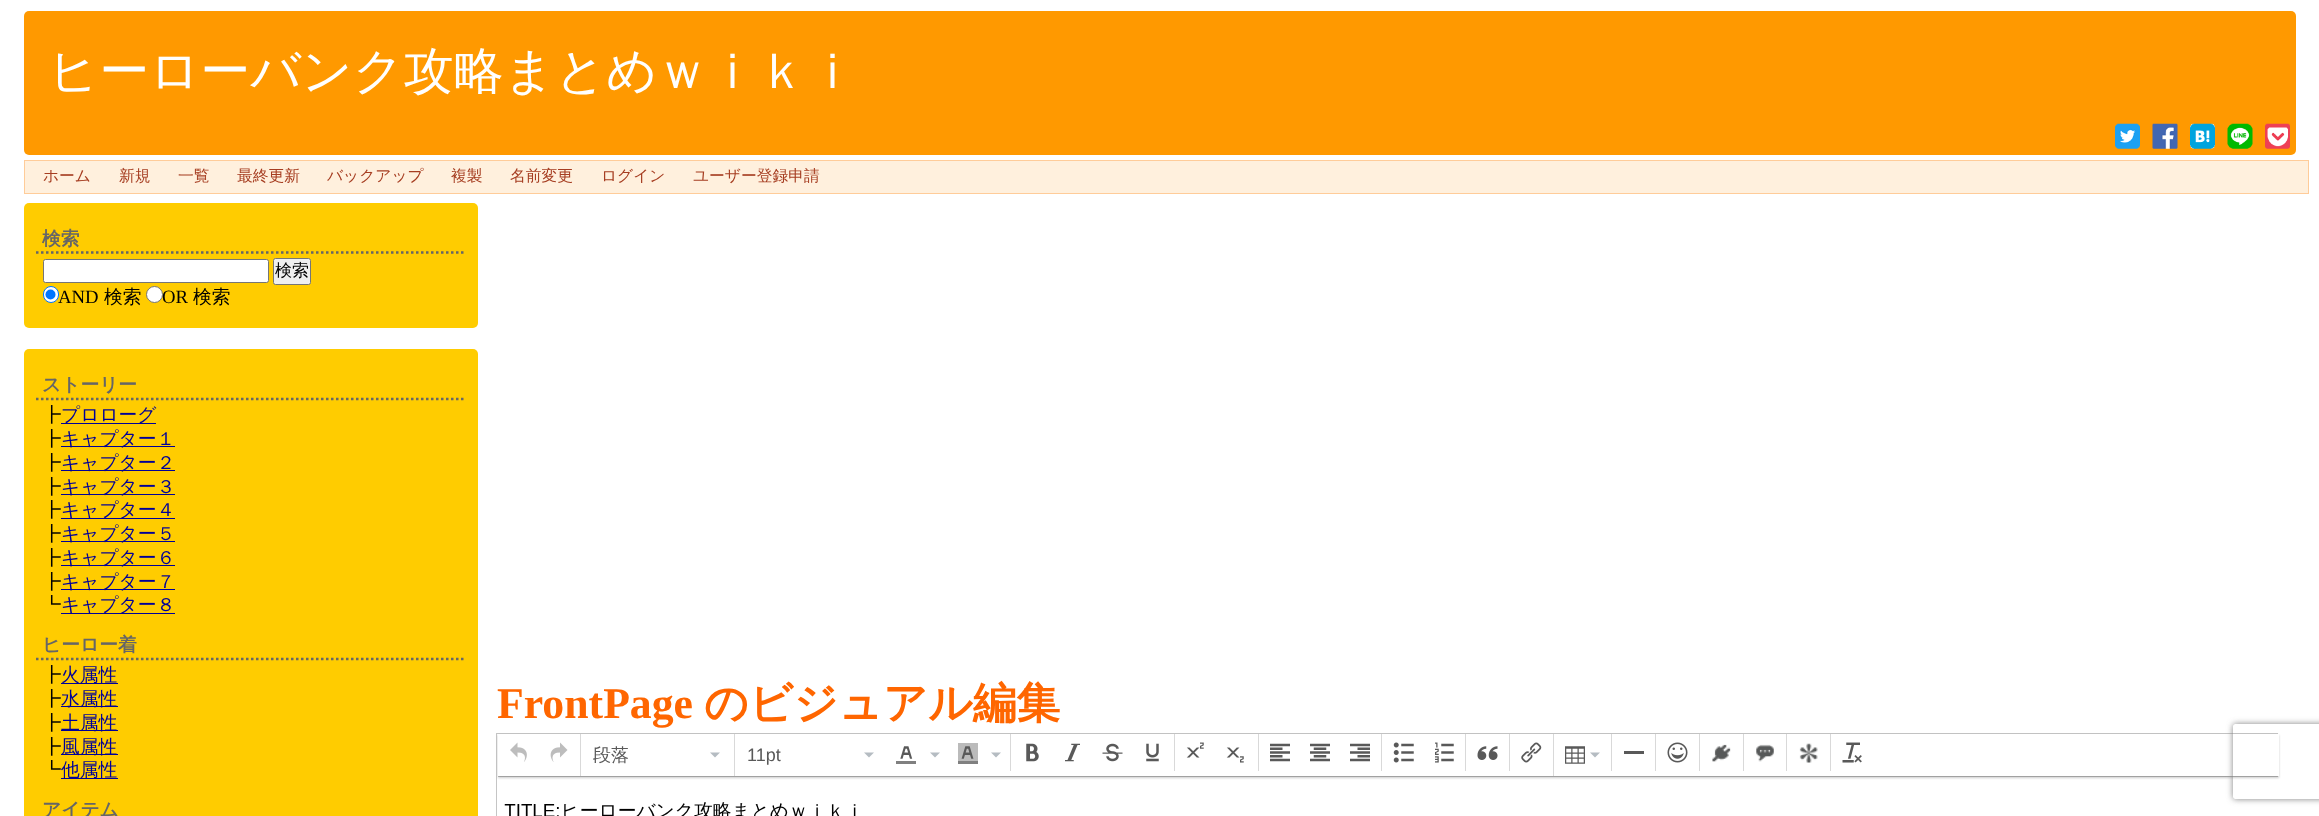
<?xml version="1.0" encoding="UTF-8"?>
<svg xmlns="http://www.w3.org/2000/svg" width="2319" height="816">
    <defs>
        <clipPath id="clip1"><rect x="496" y="733" width="1782" height="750"/></clipPath>
        <clipPath id="clip2"><path d="M 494 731 H 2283 V 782 H 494 Z M 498 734 H 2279 V 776 H 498 Z" clip-rule="evenodd"/></clipPath>
        <filter id="blur1" x="-50%" y="-200%" width="200%" height="500%"><feGaussianBlur stdDeviation="1"/></filter>
        <clipPath id="clip3"><path d="M 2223 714 H 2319 V 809 H 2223 Z M 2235.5 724 H 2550.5 C 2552 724 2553 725 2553 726.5 V 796.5 C 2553 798 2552 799 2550.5 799 H 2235.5 C 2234 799 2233 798 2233 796.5 V 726.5 C 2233 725 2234 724 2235.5 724 Z" clip-rule="evenodd"/></clipPath>
        <filter id="blur2" x="-50%" y="-200%" width="200%" height="500%"><feGaussianBlur stdDeviation="3"/></filter>
    </defs>
    <rect width="100%" height="100%" fill="#FFFFFF"/>
    <rect x="24" y="11" width="2272" height="144" rx="5" fill="#FF9900"/>
    <text x="48" y="88" font-family="WenQuanYi Zen Hei" font-size="50" font-weight="500" fill="#FFFFFF">ヒーローバンク攻略まとめｗｉｋｉ</text>
    <image x="2115" y="123" width="25" height="26" href="img_01.png"/>
    <image x="2152" y="123" width="26" height="26" href="img_02.png"/>
    <image x="2190" y="123" width="25" height="26" href="img_03.png"/>
    <image x="2227" y="123" width="26" height="26" href="img_04.png"/>
    <image x="2265" y="123" width="25" height="26" href="img_05.png"/>
    <rect x="24.5" y="160.5" width="2284" height="33" fill="#FFF0DD" stroke="#FFCC99"/>
    <text x="43" y="181" font-family="WenQuanYi Zen Hei" font-size="15.75" font-weight="500" fill="#A63D21">ホーム</text>
    <text x="119" y="181" font-family="WenQuanYi Zen Hei" font-size="15.75" font-weight="500" fill="#A63D21">新規</text>
    <text x="178" y="181" font-family="WenQuanYi Zen Hei" font-size="15.75" font-weight="500" fill="#A63D21">一覧</text>
    <text x="237" y="181" font-family="WenQuanYi Zen Hei" font-size="15.75" font-weight="500" fill="#A63D21">最終更新</text>
    <text x="327" y="181" font-family="WenQuanYi Zen Hei" font-size="15.75" font-weight="500" fill="#A63D21">バックアップ</text>
    <text x="451" y="181" font-family="WenQuanYi Zen Hei" font-size="15.75" font-weight="500" fill="#A63D21">複製</text>
    <text x="510" y="181" font-family="WenQuanYi Zen Hei" font-size="15.75" font-weight="500" fill="#A63D21">名前変更</text>
    <text x="601" y="181" font-family="WenQuanYi Zen Hei" font-size="15.75" font-weight="500" fill="#A63D21">ログイン</text>
    <text x="693" y="181" font-family="WenQuanYi Zen Hei" font-size="15.75" font-weight="500" fill="#A63D21">ユーザー登録申請</text>
    <rect x="24" y="203" width="454" height="125" rx="5" fill="#FFCC00"/>
    <path d="M 36 252.5 H 465" fill="none" stroke="#666666" stroke-width="2.5" stroke-dasharray="2.5 2.5"/>
    <text x="42" y="245" font-family="WenQuanYi Zen Hei" font-size="18.75" font-weight="700" fill="#666666">検索</text>
    <rect x="43.5" y="259.5" width="225" height="23" rx="2" fill="#FFFFFF" stroke="#767676"/>
    <rect x="273.5" y="258.5" width="37" height="26" rx="2" fill="#EFEFEF" stroke="#767676"/>
    <text x="275" y="276" font-family="WenQuanYi Zen Hei" font-size="17" font-weight="500" fill="#000000">検索</text>
    <rect x="43.5" y="286.5" width="15" height="16" rx="7.5" fill="#FFFFFF" stroke="#0075FF"/>
    <circle cx="50.5" cy="294.5" r="5" fill="#0075FF"/>
    <text x="58" y="303" font-family="Liberation Serif" font-size="18.75" fill="#000000">AND</text>
    <text x="104" y="303" font-family="WenQuanYi Zen Hei" font-size="18.75" font-weight="500" fill="#000000">検索</text>
    <circle cx="154.5" cy="294.5" r="8" fill="#FFFFFF" stroke="#767676"/>
    <text x="162" y="303" font-family="Liberation Serif" font-size="18.75" fill="#000000">OR</text>
    <text x="193" y="303" font-family="WenQuanYi Zen Hei" font-size="18.75" font-weight="500" fill="#000000">検索</text>
    <rect x="24" y="349" width="454" height="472" rx="5" fill="#FFCC00"/>
    <path d="M 36 399 H 465" fill="none" stroke="#666666" stroke-width="2.5" stroke-dasharray="2.5 2.5"/>
    <text x="42" y="391" font-family="WenQuanYi Zen Hei" font-size="18.75" font-weight="700" fill="#666666">ストーリー</text>
    <text x="42" y="421" font-family="WenQuanYi Zen Hei" font-size="18.75" font-weight="500" fill="#000000">┣</text>
    <rect x="61" y="423" width="95" height="1" fill="#000099"/>
    <text x="61" y="421" font-family="WenQuanYi Zen Hei" font-size="18.75" font-weight="500" fill="#000099">プロローグ</text>
    <text x="42" y="445" font-family="WenQuanYi Zen Hei" font-size="18.75" font-weight="500" fill="#000000">┣</text>
    <rect x="61" y="446" width="114" height="1" fill="#000099"/>
    <text x="61" y="445" font-family="WenQuanYi Zen Hei" font-size="18.75" font-weight="500" fill="#000099">キャプター１</text>
    <text x="42" y="469" font-family="WenQuanYi Zen Hei" font-size="18.75" font-weight="500" fill="#000000">┣</text>
    <rect x="61" y="470" width="114" height="1" fill="#000099"/>
    <text x="61" y="469" font-family="WenQuanYi Zen Hei" font-size="18.75" font-weight="500" fill="#000099">キャプター２</text>
    <text x="42" y="493" font-family="WenQuanYi Zen Hei" font-size="18.75" font-weight="500" fill="#000000">┣</text>
    <rect x="61" y="494" width="114" height="1" fill="#000099"/>
    <text x="61" y="493" font-family="WenQuanYi Zen Hei" font-size="18.75" font-weight="500" fill="#000099">キャプター３</text>
    <text x="42" y="516" font-family="WenQuanYi Zen Hei" font-size="18.75" font-weight="500" fill="#000000">┣</text>
    <rect x="61" y="518" width="114" height="1" fill="#000099"/>
    <text x="61" y="516" font-family="WenQuanYi Zen Hei" font-size="18.75" font-weight="500" fill="#000099">キャプター４</text>
    <text x="42" y="540" font-family="WenQuanYi Zen Hei" font-size="18.75" font-weight="500" fill="#000000">┣</text>
    <rect x="61" y="541" width="114" height="1" fill="#000099"/>
    <text x="61" y="540" font-family="WenQuanYi Zen Hei" font-size="18.75" font-weight="500" fill="#000099">キャプター５</text>
    <text x="42" y="564" font-family="WenQuanYi Zen Hei" font-size="18.75" font-weight="500" fill="#000000">┣</text>
    <rect x="61" y="565" width="114" height="1" fill="#000099"/>
    <text x="61" y="564" font-family="WenQuanYi Zen Hei" font-size="18.75" font-weight="500" fill="#000099">キャプター６</text>
    <text x="42" y="588" font-family="WenQuanYi Zen Hei" font-size="18.75" font-weight="500" fill="#000000">┣</text>
    <rect x="61" y="589" width="114" height="1" fill="#000099"/>
    <text x="61" y="588" font-family="WenQuanYi Zen Hei" font-size="18.75" font-weight="500" fill="#000099">キャプター７</text>
    <text x="42" y="611" font-family="WenQuanYi Zen Hei" font-size="18.75" font-weight="500" fill="#000000">┗</text>
    <rect x="61" y="613" width="114" height="1" fill="#000099"/>
    <text x="61" y="611" font-family="WenQuanYi Zen Hei" font-size="18.75" font-weight="500" fill="#000099">キャプター８</text>
    <path d="M 36 659 H 465" fill="none" stroke="#666666" stroke-width="2.5" stroke-dasharray="2.5 2.5"/>
    <text x="42" y="651" font-family="WenQuanYi Zen Hei" font-size="18.75" font-weight="700" fill="#666666">ヒーロー着</text>
    <text x="42" y="681" font-family="WenQuanYi Zen Hei" font-size="18.75" font-weight="500" fill="#000000">┣</text>
    <rect x="61" y="683" width="57" height="1" fill="#000099"/>
    <text x="61" y="681" font-family="WenQuanYi Zen Hei" font-size="18.75" font-weight="500" fill="#000099">火属性</text>
    <text x="42" y="705" font-family="WenQuanYi Zen Hei" font-size="18.75" font-weight="500" fill="#000000">┣</text>
    <rect x="61" y="706" width="57" height="1" fill="#000099"/>
    <text x="61" y="705" font-family="WenQuanYi Zen Hei" font-size="18.75" font-weight="500" fill="#000099">水属性</text>
    <text x="42" y="729" font-family="WenQuanYi Zen Hei" font-size="18.75" font-weight="500" fill="#000000">┣</text>
    <rect x="61" y="730" width="57" height="1" fill="#000099"/>
    <text x="61" y="729" font-family="WenQuanYi Zen Hei" font-size="18.75" font-weight="500" fill="#000099">土属性</text>
    <text x="42" y="753" font-family="WenQuanYi Zen Hei" font-size="18.75" font-weight="500" fill="#000000">┣</text>
    <rect x="61" y="754" width="57" height="1" fill="#000099"/>
    <text x="61" y="753" font-family="WenQuanYi Zen Hei" font-size="18.75" font-weight="500" fill="#000099">風属性</text>
    <text x="42" y="776" font-family="WenQuanYi Zen Hei" font-size="18.75" font-weight="500" fill="#000000">┗</text>
    <rect x="61" y="778" width="57" height="1" fill="#000099"/>
    <text x="61" y="776" font-family="WenQuanYi Zen Hei" font-size="18.75" font-weight="500" fill="#000099">他属性</text>
    <text x="42" y="816" font-family="WenQuanYi Zen Hei" font-size="18.75" font-weight="700" fill="#666666">アイテム</text>
    <text x="497" y="718" font-family="Liberation Serif" font-size="43.75" font-weight="700" fill="#FF6600">FrontPage</text>
    <text x="704" y="718" font-family="WenQuanYi Zen Hei" font-size="43.75" font-weight="700" fill="#FF6600">のビジュアル編集</text>
    <g clip-path="url(#clip1)">
        <rect x="496.5" y="733.5" width="1783" height="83" fill="none" stroke="#C5C5C5"/>
    </g>
    <rect x="580" y="734" width="1" height="42" fill="#D9D9D9"/>
    <rect x="734" y="734" width="1" height="42" fill="#D9D9D9"/>
    <rect x="1010" y="734" width="1" height="37" fill="#D9D9D9"/>
    <rect x="1174" y="734" width="1" height="37" fill="#D9D9D9"/>
    <rect x="1258" y="734" width="1" height="37" fill="#D9D9D9"/>
    <rect x="1381" y="734" width="1" height="37" fill="#D9D9D9"/>
    <rect x="1465" y="734" width="1" height="37" fill="#D9D9D9"/>
    <rect x="1509" y="734" width="1" height="37" fill="#D9D9D9"/>
    <rect x="1553" y="734" width="1" height="42" fill="#D9D9D9"/>
    <rect x="1611" y="734" width="1" height="37" fill="#D9D9D9"/>
    <rect x="1655" y="734" width="1" height="37" fill="#D9D9D9"/>
    <rect x="1699" y="734" width="1" height="37" fill="#D9D9D9"/>
    <rect x="1743" y="734" width="1" height="37" fill="#D9D9D9"/>
    <rect x="1786" y="734" width="1" height="37" fill="#D9D9D9"/>
    <rect x="1830" y="734" width="1" height="37" fill="#D9D9D9"/>
    <rect x="498" y="776" width="1780" height="1" fill="#C5C5C5"/>
    <g clip-path="url(#clip2)">
        <rect x="498" y="735" width="1781" height="43" fill="#000000" fill-opacity="0.2" filter="url(#blur1)"/>
    </g>
    <image x="510" y="742" width="17" height="20" href="img_06.png"/>
    <image x="550" y="742" width="18" height="20" href="img_07.png"/>
    <text x="593" y="761" font-family="WenQuanYi Zen Hei" font-size="18" font-weight="500" fill="#595959">段落</text>
    <path d="M 710 752.5 H 720 L 715 757.5 Z" fill="#B5BCC2"/>
    <text x="747" y="761" font-family="Liberation Sans" font-size="18" fill="#595959">11pt</text>
    <path d="M 864 752.5 H 874 L 869 757.5 Z" fill="#B5BCC2"/>
    <image x="900" y="746" width="13" height="13" href="img_08.png"/>
    <rect x="896" y="761" width="20" height="3" fill="#808080"/>
    <path d="M 930 752.5 H 940 L 935 757.5 Z" fill="#B5BCC2"/>
    <rect x="958" y="743" width="20" height="18" fill="#BBBBBB"/>
    <image x="961" y="746" width="13" height="13" href="img_09.png"/>
    <rect x="958" y="761" width="20" height="3" fill="#808080"/>
    <path d="M 991 752.5 H 1001 L 996 757.5 Z" fill="#B5BCC2"/>
    <image x="1026" y="743" width="13" height="19" href="img_10.png"/>
    <image x="1065" y="743" width="15" height="19" href="img_11.png"/>
    <image x="1102" y="743" width="21" height="19" href="img_12.png"/>
    <image x="1146" y="743" width="13" height="19" href="img_13.png"/>
    <image x="1186" y="742" width="18" height="16" href="img_14.png"/>
    <image x="1226" y="747" width="18" height="16" href="img_15.png"/>
    <image x="1270" y="743" width="20" height="19" href="img_16.png"/>
    <image x="1310" y="743" width="20" height="19" href="img_17.png"/>
    <image x="1350" y="743" width="20" height="19" href="img_18.png"/>
    <image x="1393" y="742" width="21" height="21" href="img_19.png"/>
    <image x="1435" y="742" width="19" height="21" href="img_20.png"/>
    <image x="1477" y="746" width="21" height="14" href="img_21.png"/>
    <image x="1521" y="742" width="21" height="21" href="img_22.png"/>
    <image x="1565" y="746" width="20" height="18" href="img_23.png"/>
    <path d="M 1590 752.5 H 1600 L 1595 757.5 Z" fill="#B5BCC2"/>
    <rect x="1624" y="751" width="20" height="3" fill="#595959"/>
    <image x="1667" y="742" width="21" height="21" href="img_24.png"/>
    <image x="1712" y="744" width="19" height="18" href="img_25.png"/>
    <image x="1756" y="744" width="18" height="18" href="img_26.png"/>
    <image x="1799" y="743" width="19" height="20" href="img_27.png"/>
    <image x="1842" y="742" width="20" height="21" href="img_28.png"/>
    <image x="504" y="802" width="352" height="14" href="img_29.png"/>
    <g clip-path="url(#clip3)">
        <rect x="2233" y="724" width="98" height="75" rx="2.5" fill="#808080" filter="url(#blur2)"/>
    </g>
</svg>
